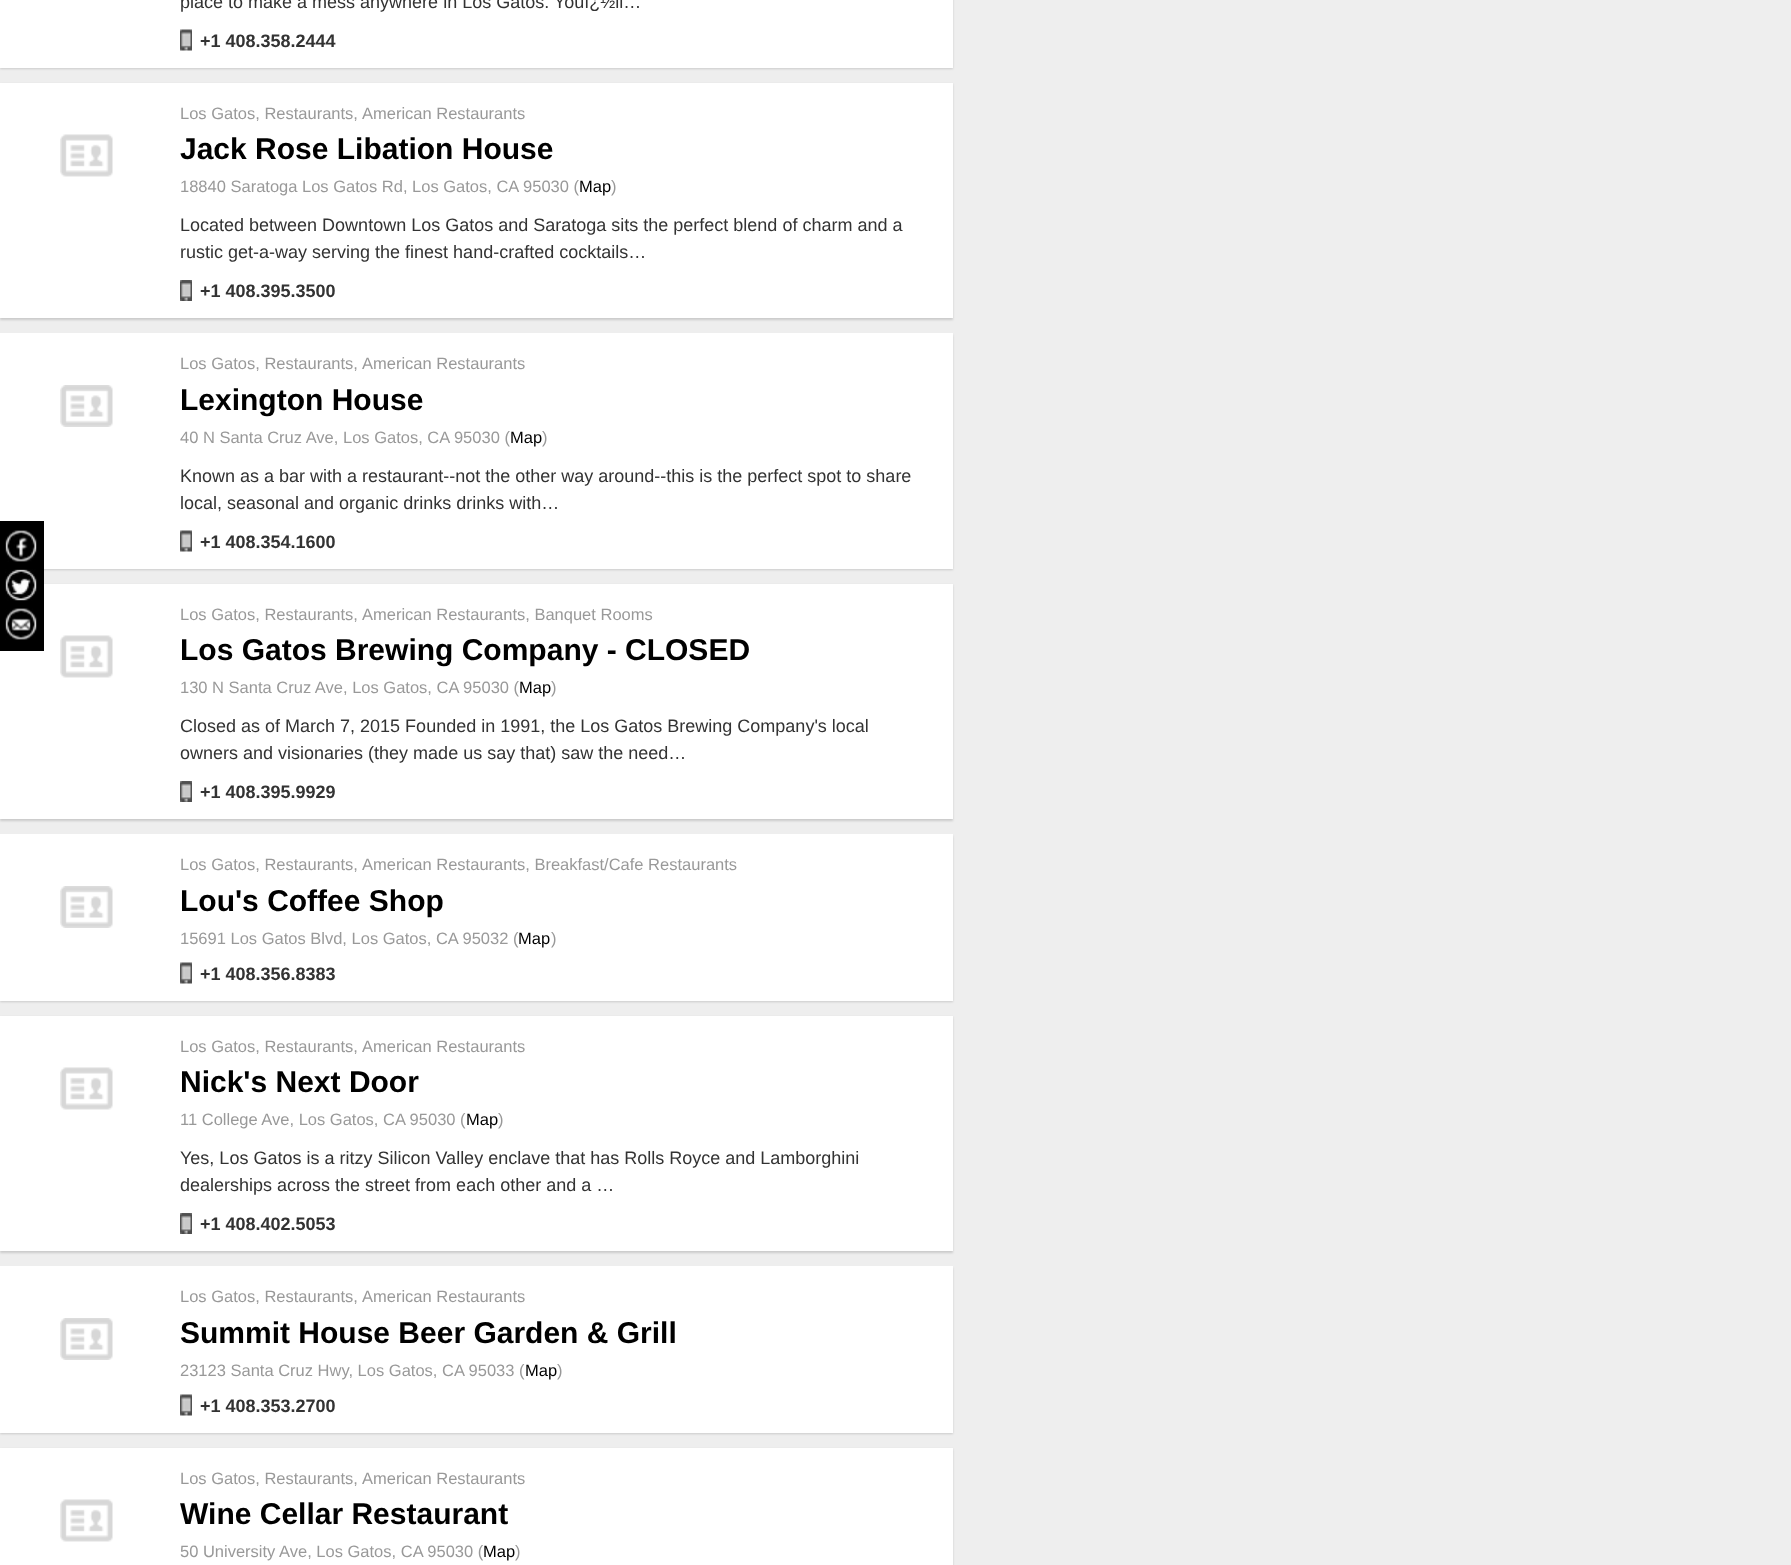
<?xml version="1.0" encoding="UTF-8"?>
<svg xmlns="http://www.w3.org/2000/svg" width="1791" height="1565">
    <defs>
        <filter id="blur1" x="-50%" y="-200%" width="200%" height="500%"><feGaussianBlur stdDeviation="1"/></filter>
    </defs>
    <rect width="100%" height="100%" fill="#EEEEEE"/>
    <rect x="0" y="335" width="953" height="235" fill="#CBCBCB" filter="url(#blur1)"/>
    <rect x="0" y="333" width="953" height="236" fill="#FFFFFF"/>
    <rect x="0" y="585" width="953" height="236" fill="#CBCBCB" filter="url(#blur1)"/>
    <rect x="0" y="584" width="953" height="235" fill="#FFFFFF"/>
    <rect x="0" y="521" width="44" height="130" fill="#000000"/>
    <image x="5" y="530" width="32" height="32" href="img_01.png"/>
    <image x="5" y="569" width="32" height="32" href="img_02.png"/>
    <image x="5" y="608" width="32" height="32" href="img_03.png"/>
    <rect x="0" y="-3" width="953" height="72" fill="#CBCBCB" filter="url(#blur1)"/>
    <rect x="0" y="0" width="953" height="68" fill="#FFFFFF"/>
    <text x="180" y="8" font-family="Liberation Sans" font-size="18" fill="#333333">place to make a mess anywhere in Los Gatos. Youï¿½ll…</text>
    <image x="180" y="29" width="12" height="22" href="img_04.png"/>
    <text x="200" y="47" font-family="Liberation Sans" font-size="18" font-weight="700" fill="#333333">+1 408.358.2444</text>
    <rect x="0" y="84" width="953" height="236" fill="#CBCBCB" filter="url(#blur1)"/>
    <rect x="0" y="83" width="953" height="235" fill="#FFFFFF"/>
    <image x="60" y="134" width="53" height="43" href="img_05.png"/>
    <text x="180" y="119" font-family="Liberation Sans" font-size="16.5" fill="#999999">Los Gatos, Restaurants,</text>
    <text x="362" y="119" font-family="Liberation Sans" font-size="16.5" fill="#999999">American Restaurants</text>
    <text x="180" y="159" font-family="Liberation Sans" font-size="30" font-weight="700" fill="#000000">Jack Rose Libation House</text>
    <text x="180" y="192" font-family="Liberation Sans" font-size="16.5" fill="#999999">18840 Saratoga Los Gatos Rd, Los Gatos, CA 95030 (</text>
    <text x="579" y="192" font-family="Liberation Sans" font-size="16.5" fill="#000000">Map</text>
    <text x="611" y="192" font-family="Liberation Sans" font-size="16.5" fill="#999999">)</text>
    <text font-family="Liberation Sans" font-size="18" fill="#333333">
        <tspan x="180" y="231">Located between Downtown Los Gatos and Saratoga sits the perfect blend of charm and a</tspan>
        <tspan x="180" y="258">rustic get-a-way serving the finest hand-crafted cocktails…</tspan>
    </text>
    <image x="180" y="280" width="12" height="21" href="img_06.png"/>
    <text x="200" y="297" font-family="Liberation Sans" font-size="18" font-weight="700" fill="#333333">+1 408.395.3500</text>
    <image x="60" y="385" width="53" height="42" href="img_07.png"/>
    <text x="180" y="369" font-family="Liberation Sans" font-size="16.5" fill="#999999">Los Gatos, Restaurants,</text>
    <text x="362" y="369" font-family="Liberation Sans" font-size="16.5" fill="#999999">American Restaurants</text>
    <text x="180" y="410" font-family="Liberation Sans" font-size="30" font-weight="700" fill="#000000">Lexington House</text>
    <text x="180" y="443" font-family="Liberation Sans" font-size="16.5" fill="#999999">40 N Santa Cruz Ave, Los Gatos, CA 95030 (</text>
    <text x="510" y="443" font-family="Liberation Sans" font-size="16.5" fill="#000000">Map</text>
    <text x="542" y="443" font-family="Liberation Sans" font-size="16.5" fill="#999999">)</text>
    <text font-family="Liberation Sans" font-size="18" fill="#333333">
        <tspan x="180" y="482">Known as a bar with a restaurant--not the other way around--this is the perfect spot to share</tspan>
        <tspan x="180" y="509">local, seasonal and organic drinks drinks with…</tspan>
    </text>
    <image x="180" y="530" width="12" height="22" href="img_04.png"/>
    <text x="200" y="548" font-family="Liberation Sans" font-size="18" font-weight="700" fill="#333333">+1 408.354.1600</text>
    <image x="60" y="635" width="53" height="43" href="img_05.png"/>
    <text x="180" y="620" font-family="Liberation Sans" font-size="16.5" fill="#999999">Los Gatos, Restaurants,</text>
    <text x="362" y="620" font-family="Liberation Sans" font-size="16.5" fill="#999999">American Restaurants, Banquet Rooms</text>
    <text x="180" y="660" font-family="Liberation Sans" font-size="30" font-weight="700" fill="#000000">Los Gatos Brewing Company - CLOSED</text>
    <text x="180" y="693" font-family="Liberation Sans" font-size="16.5" fill="#999999">130 N Santa Cruz Ave, Los Gatos, CA 95030 (</text>
    <text x="519" y="693" font-family="Liberation Sans" font-size="16.5" fill="#000000">Map</text>
    <text x="551" y="693" font-family="Liberation Sans" font-size="16.5" fill="#999999">)</text>
    <text font-family="Liberation Sans" font-size="18" fill="#333333">
        <tspan x="180" y="732">Closed as of March 7, 2015 Founded in 1991, the Los Gatos Brewing Company's local</tspan>
        <tspan x="180" y="759">owners and visionaries (they made us say that) saw the need…</tspan>
    </text>
    <image x="180" y="781" width="12" height="21" href="img_06.png"/>
    <text x="200" y="798" font-family="Liberation Sans" font-size="18" font-weight="700" fill="#333333">+1 408.395.9929</text>
    <rect x="0" y="836" width="953" height="166" fill="#CBCBCB" filter="url(#blur1)"/>
    <rect x="0" y="834" width="953" height="167" fill="#FFFFFF"/>
    <image x="60" y="886" width="53" height="42" href="img_07.png"/>
    <text x="180" y="870" font-family="Liberation Sans" font-size="16.5" fill="#999999">Los Gatos, Restaurants,</text>
    <text x="362" y="870" font-family="Liberation Sans" font-size="16.5" fill="#999999">American Restaurants, Breakfast/Cafe Restaurants</text>
    <text x="180" y="911" font-family="Liberation Sans" font-size="30" font-weight="700" fill="#000000">Lou's Coffee Shop</text>
    <text x="180" y="944" font-family="Liberation Sans" font-size="16.5" fill="#999999">15691 Los Gatos Blvd, Los Gatos, CA 95032 (</text>
    <text x="518" y="944" font-family="Liberation Sans" font-size="16.5" fill="#000000">Map</text>
    <text x="551" y="944" font-family="Liberation Sans" font-size="16.5" fill="#999999">)</text>
    <image x="180" y="962" width="12" height="22" href="img_04.png"/>
    <text x="200" y="980" font-family="Liberation Sans" font-size="18" font-weight="700" fill="#333333">+1 408.356.8383</text>
    <rect x="0" y="1017" width="953" height="236" fill="#CBCBCB" filter="url(#blur1)"/>
    <rect x="0" y="1016" width="953" height="235" fill="#FFFFFF"/>
    <image x="60" y="1067" width="53" height="43" href="img_05.png"/>
    <text x="180" y="1052" font-family="Liberation Sans" font-size="16.5" fill="#999999">Los Gatos, Restaurants,</text>
    <text x="362" y="1052" font-family="Liberation Sans" font-size="16.5" fill="#999999">American Restaurants</text>
    <text x="180" y="1092" font-family="Liberation Sans" font-size="30" font-weight="700" fill="#000000">Nick's Next Door</text>
    <text x="180" y="1125" font-family="Liberation Sans" font-size="16.5" fill="#999999">11 College Ave, Los Gatos, CA 95030 (</text>
    <text x="466" y="1125" font-family="Liberation Sans" font-size="16.5" fill="#000000">Map</text>
    <text x="498" y="1125" font-family="Liberation Sans" font-size="16.5" fill="#999999">)</text>
    <text font-family="Liberation Sans" font-size="18" fill="#333333">
        <tspan x="180" y="1164">Yes, Los Gatos is a ritzy Silicon Valley enclave that has Rolls Royce and Lamborghini</tspan>
        <tspan x="180" y="1191">dealerships across the street from each other and a …</tspan>
    </text>
    <image x="180" y="1213" width="12" height="21" href="img_06.png"/>
    <text x="200" y="1230" font-family="Liberation Sans" font-size="18" font-weight="700" fill="#333333">+1 408.402.5053</text>
    <rect x="0" y="1268" width="953" height="166" fill="#CBCBCB" filter="url(#blur1)"/>
    <rect x="0" y="1266" width="953" height="167" fill="#FFFFFF"/>
    <image x="60" y="1318" width="53" height="42" href="img_07.png"/>
    <text x="180" y="1302" font-family="Liberation Sans" font-size="16.5" fill="#999999">Los Gatos, Restaurants,</text>
    <text x="362" y="1302" font-family="Liberation Sans" font-size="16.5" fill="#999999">American Restaurants</text>
    <text x="180" y="1343" font-family="Liberation Sans" font-size="30" font-weight="700" fill="#000000">Summit House Beer Garden &amp; Grill</text>
    <text x="180" y="1376" font-family="Liberation Sans" font-size="16.5" fill="#999999">23123 Santa Cruz Hwy, Los Gatos, CA 95033 (</text>
    <text x="525" y="1376" font-family="Liberation Sans" font-size="16.5" fill="#000000">Map</text>
    <text x="557" y="1376" font-family="Liberation Sans" font-size="16.5" fill="#999999">)</text>
    <image x="180" y="1394" width="12" height="22" href="img_04.png"/>
    <text x="200" y="1412" font-family="Liberation Sans" font-size="18" font-weight="700" fill="#333333">+1 408.353.2700</text>
    <rect x="0" y="1449" width="953" height="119" fill="#CBCBCB" filter="url(#blur1)"/>
    <rect x="0" y="1448" width="953" height="117" fill="#FFFFFF"/>
    <image x="60" y="1499" width="53" height="43" href="img_05.png"/>
    <text x="180" y="1484" font-family="Liberation Sans" font-size="16.5" fill="#999999">Los Gatos, Restaurants,</text>
    <text x="362" y="1484" font-family="Liberation Sans" font-size="16.5" fill="#999999">American Restaurants</text>
    <text x="180" y="1524" font-family="Liberation Sans" font-size="30" font-weight="700" fill="#000000">Wine Cellar Restaurant</text>
    <text x="180" y="1557" font-family="Liberation Sans" font-size="16.5" fill="#999999">50 University Ave, Los Gatos, CA 95030 (</text>
    <text x="483" y="1557" font-family="Liberation Sans" font-size="16.5" fill="#000000">Map</text>
    <text x="515" y="1557" font-family="Liberation Sans" font-size="16.5" fill="#999999">)</text>
</svg>
